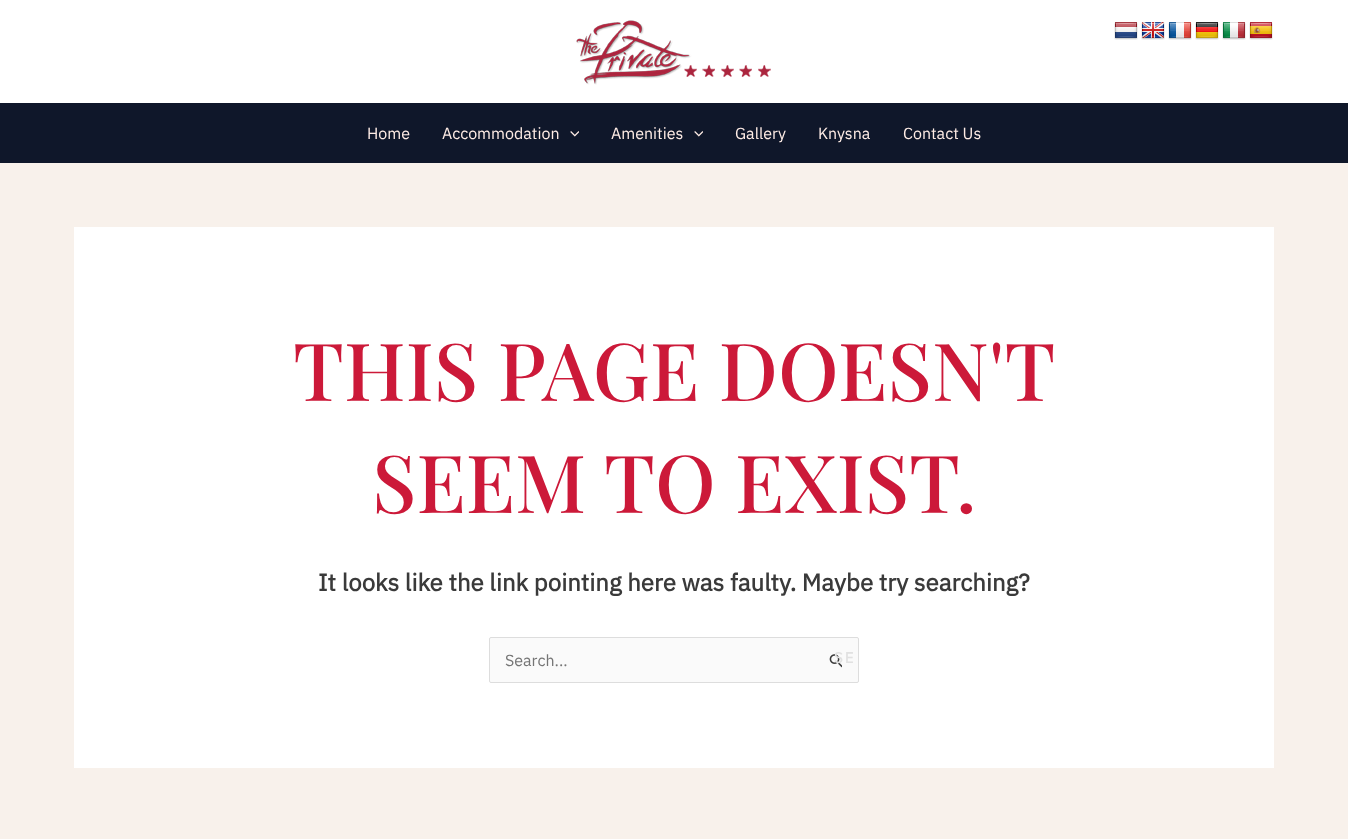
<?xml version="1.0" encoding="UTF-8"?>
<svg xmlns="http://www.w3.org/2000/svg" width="1348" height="839">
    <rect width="100%" height="100%" fill="#F8F1EB"/>
    <rect x="0" y="0" width="1348" height="103" fill="#FFFFFF"/>
    <image x="576" y="20" width="195" height="65" href="img_01.png"/>
    <image x="1114" y="22" width="24" height="18" href="img_02.png"/>
    <image x="1141" y="22" width="24" height="18" href="img_03.png"/>
    <image x="1168" y="22" width="24" height="18" href="img_04.png"/>
    <image x="1195" y="22" width="24" height="18" href="img_05.png"/>
    <image x="1222" y="22" width="24" height="18" href="img_06.png"/>
    <image x="1249" y="22" width="24" height="18" href="img_07.png"/>
    <rect x="0" y="103" width="1348" height="60" fill="#0F172A"/>
    <text x="367" y="139" font-family="IBM Plex Sans" font-size="16" fill="#FFEDE6">Home</text>
    <text x="442" y="139" font-family="IBM Plex Sans" font-size="16" fill="#FFEDE6">Accommodation</text>
    <image x="570" y="131" width="9" height="6" href="img_08.png"/>
    <text x="611" y="139" font-family="IBM Plex Sans" font-size="16" fill="#FFEDE6">Amenities</text>
    <image x="694" y="131" width="9" height="6" href="img_08.png"/>
    <text x="735" y="139" font-family="IBM Plex Sans" font-size="16" fill="#FFEDE6">Gallery</text>
    <text x="818" y="139" font-family="IBM Plex Sans" font-size="16" fill="#FFEDE6">Knysna</text>
    <text x="903" y="139" font-family="IBM Plex Sans" font-size="16" fill="#FFEDE6">Contact Us</text>
    <rect x="74" y="227" width="1200" height="541" fill="#FFFFFF"/>
    <text x="293" y="401" font-family="Playfair Display" font-size="80" font-weight="500" fill="#CC1939">THIS PAGE DOESN'T</text>
    <text x="372" y="513" font-family="Playfair Display" font-size="80" font-weight="500" fill="#CC1939">SEEM TO EXIST.</text>
    <text x="318" y="591" font-family="IBM Plex Sans" font-size="24" font-weight="700" fill="#3A3A3A">It looks like the link pointing here was faulty. Maybe try searching?</text>
    <rect x="489.5" y="637.5" width="369" height="45" rx="1.5" fill="#FAFAFA" stroke="#DDDDDD"/>
    <text x="505" y="666" font-family="IBM Plex Sans" font-size="16" fill="#757575">Search...</text>
    <image x="829" y="654" width="13" height="14" href="img_09.png"/>
    <text x="834" y="663" font-family="IBM Plex Sans" font-size="15" font-weight="700" letter-spacing="2" fill="#E1E1E1">SE</text>
</svg>
